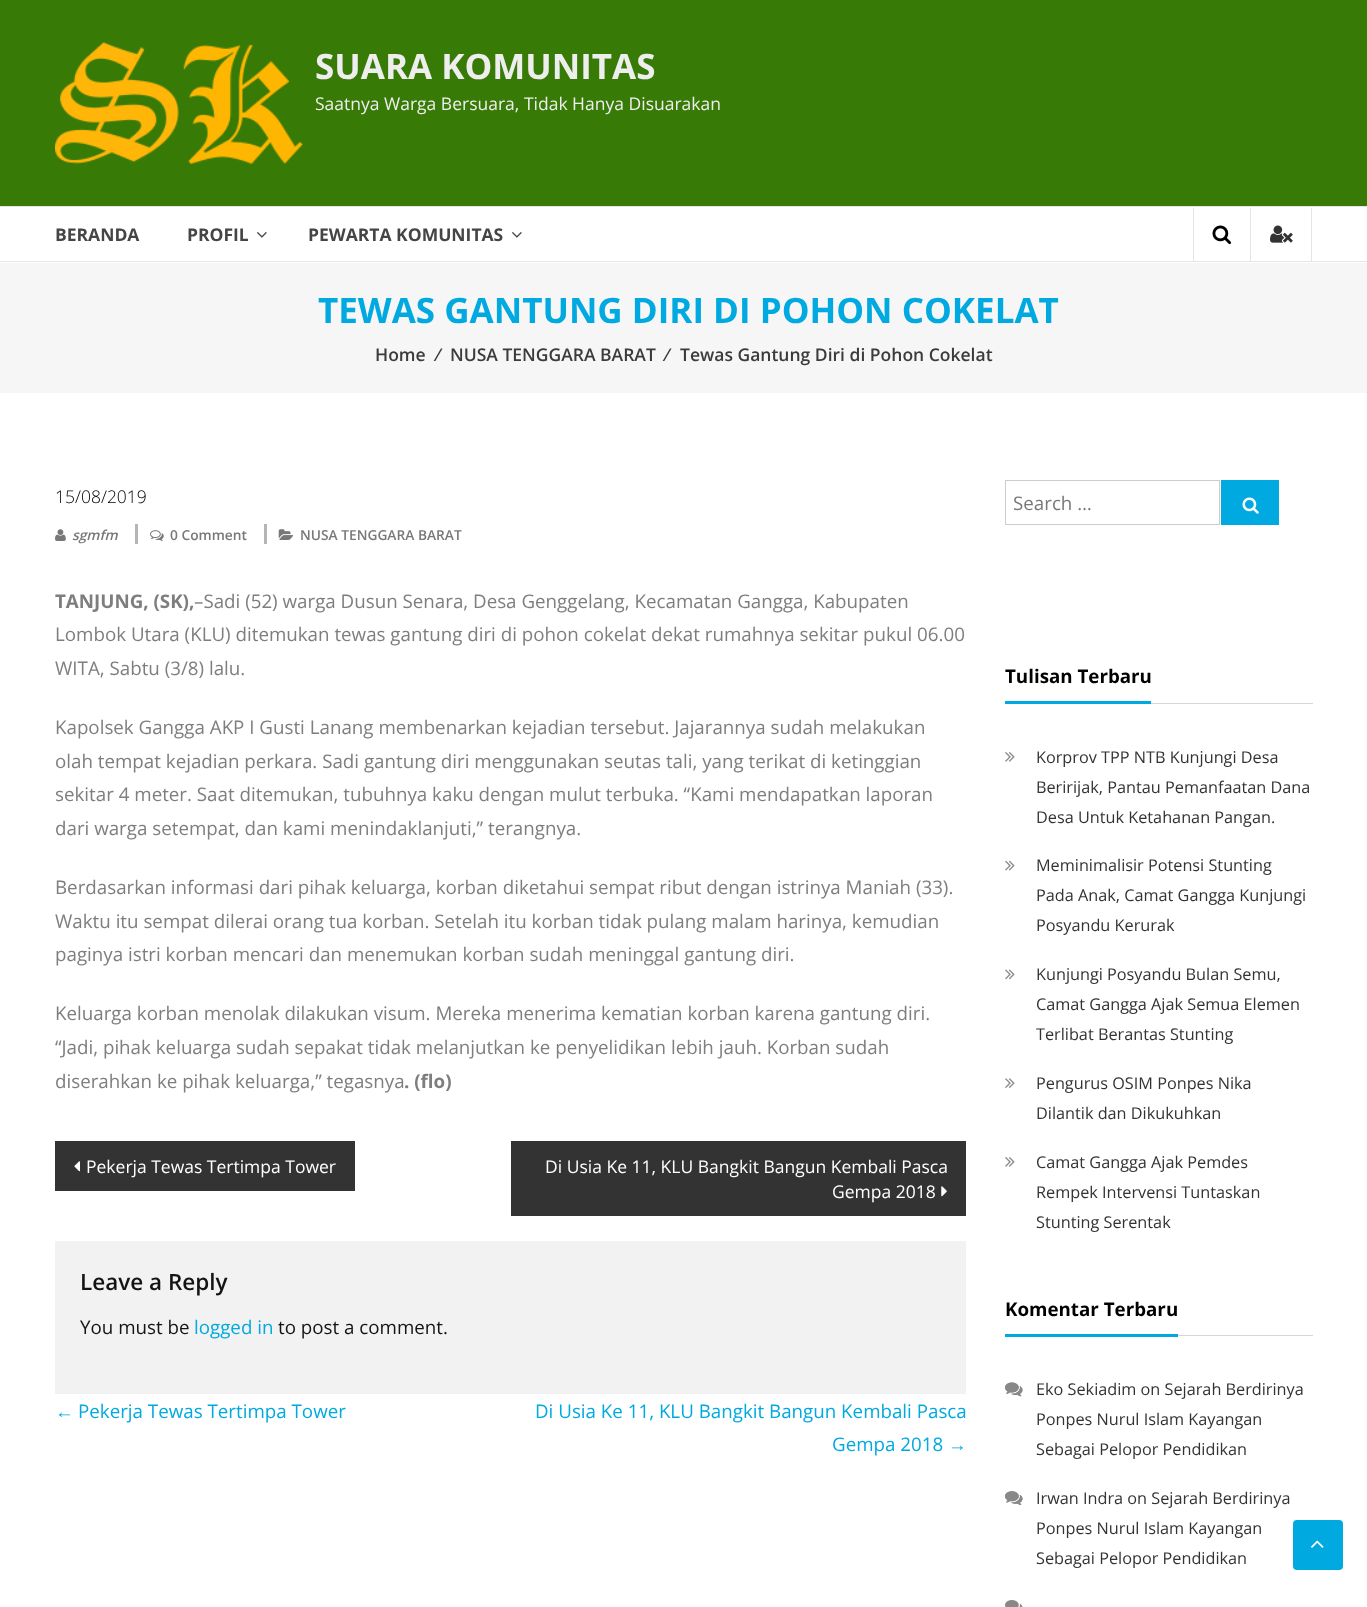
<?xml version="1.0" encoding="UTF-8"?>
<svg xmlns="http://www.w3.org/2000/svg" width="1367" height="1607">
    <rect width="100%" height="100%" fill="#FFFFFF"/>
    <rect x="0" y="0" width="1367" height="206" fill="#377A06"/>
    <image x="55" y="42" width="248" height="122" href="img_01.png"/>
    <text x="315" y="79" font-family="Open Sans" font-size="35" font-weight="700" fill="#EEEEEE">SUARA KOMUNITAS</text>
    <text x="315" y="110" font-family="Open Sans" font-size="17.5" fill="#EEEEEE">Saatnya Warga Bersuara, Tidak Hanya Disuarakan</text>
    <rect x="0" y="206" width="1367" height="1" fill="#E5E5E5"/>
    <rect x="0" y="261" width="1367" height="1" fill="#E5E5E5"/>
    <text x="55" y="241" font-family="Open Sans" font-size="17.5" font-weight="700" fill="#454545">BERANDA</text>
    <text x="187" y="241" font-family="Open Sans" font-size="17.5" font-weight="700" fill="#454545">PROFIL</text>
    <image x="257" y="232" width="10" height="6" href="img_02.png"/>
    <text x="308" y="241" font-family="Open Sans" font-size="17.5" font-weight="700" fill="#454545">PEWARTA KOMUNITAS</text>
    <image x="512" y="232" width="10" height="6" href="img_02.png"/>
    <rect x="1193" y="208" width="1" height="53" fill="#E5E5E5"/>
    <image x="1212" y="225" width="20" height="20" href="img_03.png"/>
    <rect x="1311" y="208" width="1" height="53" fill="#E5E5E5"/>
    <rect x="1250" y="208" width="1" height="53" fill="#E5E5E5"/>
    <image x="1270" y="225" width="23" height="18" href="img_04.png"/>
    <rect x="0" y="263" width="1367" height="130" fill="#F6F6F6"/>
    <text x="318" y="323" font-family="Open Sans" font-size="35" font-weight="700" fill="#00A9E0">TEWAS GANTUNG DIRI DI POHON COKELAT</text>
    <text x="375" y="361" font-family="Open Sans" font-size="17.5" font-weight="600" fill="#3B3B3B">Home</text>
    <text x="437" y="361" font-family="Open Sans" font-size="17.5" font-weight="600" fill="#3B3B3B">⁄</text>
    <text x="450" y="361" font-family="Open Sans" font-size="17.5" font-weight="600" fill="#3B3B3B">NUSA TENGGARA BARAT</text>
    <text x="666" y="361" font-family="Open Sans" font-size="17.5" font-weight="600" fill="#3B3B3B">⁄</text>
    <text x="680" y="361" font-family="Open Sans" font-size="17.5" font-weight="600" fill="#3B3B3B">Tewas Gantung Diri di Pohon Cokelat</text>
    <text x="55" y="503" font-family="Open Sans" font-size="17.5" font-weight="300" fill="#000000">15/08/2019</text>
    <image x="55" y="529" width="11" height="12" href="img_05.png"/>
    <text x="72" y="540" font-family="Open Sans" font-size="13.75" font-weight="600" font-style="italic" fill="#787878">sgmfm</text>
    <rect x="135" y="524" width="3" height="20" fill="#B5B5B5"/>
    <image x="150" y="530" width="14" height="11" href="img_06.png"/>
    <text x="170" y="540" font-family="Open Sans" font-size="13.75" font-weight="600" fill="#787878">0 Comment</text>
    <rect x="264" y="524" width="3" height="20" fill="#B5B5B5"/>
    <image x="278" y="529" width="16" height="11" href="img_07.png"/>
    <text x="300" y="540" font-family="Open Sans" font-size="13.75" font-weight="600" fill="#787878">NUSA TENGGARA BARAT</text>
    <text x="55" y="608" font-family="Open Sans" font-size="18.75" font-weight="700" fill="#7F7D7D">TANJUNG, (SK),</text>
    <text x="194" y="608" font-family="Open Sans" font-size="18.75" fill="#7F7D7D">–Sadi (52) warga Dusun Senara, Desa Genggelang, Kecamatan Gangga, Kabupaten</text>
    <text font-family="Open Sans" font-size="18.75" fill="#7F7D7D">
        <tspan x="55" y="641">Lombok Utara (KLU) ditemukan tewas gantung diri di pohon cokelat dekat rumahnya sekitar pukul 06.00</tspan>
        <tspan x="55" y="675">WITA, Sabtu (3/8) lalu.</tspan>
    </text>
    <text font-family="Open Sans" font-size="18.75" fill="#7F7D7D">
        <tspan x="55" y="734">Kapolsek Gangga AKP I Gusti Lanang membenarkan kejadian tersebut. Jajarannya sudah melakukan</tspan>
        <tspan x="55" y="768">olah tempat kejadian perkara. Sadi gantung diri menggunakan seutas tali, yang terikat di ketinggian</tspan>
        <tspan x="55" y="801">sekitar 4 meter. Saat ditemukan, tubuhnya kaku dengan mulut terbuka. “Kami mendapatkan laporan</tspan>
        <tspan x="55" y="835">dari warga setempat, dan kami menindaklanjuti,” terangnya.</tspan>
    </text>
    <text font-family="Open Sans" font-size="18.75" fill="#7F7D7D">
        <tspan x="55" y="894">Berdasarkan informasi dari pihak keluarga, korban diketahui sempat ribut dengan istrinya Maniah (33).</tspan>
        <tspan x="55" y="928">Waktu itu sempat dilerai orang tua korban. Setelah itu korban tidak pulang malam harinya, kemudian</tspan>
        <tspan x="55" y="961">paginya istri korban mencari dan menemukan korban sudah meninggal gantung diri.</tspan>
    </text>
    <text font-family="Open Sans" font-size="18.75" fill="#7F7D7D">
        <tspan x="55" y="1020">Keluarga korban menolak dilakukan visum. Mereka menerima kematian korban karena gantung diri.</tspan>
        <tspan x="55" y="1054">“Jadi, pihak keluarga sudah sepakat tidak melanjutkan ke penyelidikan lebih jauh. Korban sudah</tspan>
        <tspan x="55" y="1088">diserahkan ke pihak keluarga,” tegasnya</tspan>
    </text>
    <text x="404" y="1088" font-family="Open Sans" font-size="18.75" font-weight="700" fill="#7F7D7D">. (flo)</text>
    <rect x="55" y="1141" width="300" height="50" fill="#333333"/>
    <image x="74" y="1161" width="6" height="11" href="img_08.png"/>
    <text x="86" y="1173" font-family="Open Sans" font-size="17.5" fill="#FFFFFF">Pekerja Tewas Tertimpa Tower</text>
    <rect x="511" y="1141" width="455" height="75" fill="#333333"/>
    <text x="545" y="1173" font-family="Open Sans" font-size="17.5" fill="#FFFFFF">Di Usia Ke 11, KLU Bangkit Bangun Kembali Pasca</text>
    <text x="832" y="1198" font-family="Open Sans" font-size="17.5" fill="#FFFFFF">Gempa 2018</text>
    <image x="941" y="1186" width="6" height="11" href="img_09.png"/>
    <rect x="55" y="1241" width="911" height="153" fill="#F2F2F2"/>
    <text x="80" y="1290" font-family="Open Sans" font-size="22.5" font-weight="600" fill="#141414">Leave a Reply</text>
    <text x="80" y="1334" font-family="Open Sans" font-size="18.75" fill="#141414">You must be</text>
    <text x="194" y="1334" font-family="Open Sans" font-size="18.75" fill="#00A9E0">logged in</text>
    <text x="278" y="1334" font-family="Open Sans" font-size="18.75" fill="#141414">to post a comment.</text>
    <text x="55" y="1418" font-family="Liberation Sans" font-size="18.75" fill="#00A9E0">←</text>
    <text x="78" y="1418" font-family="Open Sans" font-size="18.75" fill="#00A9E0">Pekerja Tewas Tertimpa Tower</text>
    <text x="535" y="1418" font-family="Open Sans" font-size="18.75" fill="#00A9E0">Di Usia Ke 11, KLU Bangkit Bangun Kembali Pasca</text>
    <text x="832" y="1451" font-family="Open Sans" font-size="18.75" fill="#00A9E0">Gempa 2018</text>
    <text x="948" y="1451" font-family="Liberation Sans" font-size="18.75" fill="#00A9E0">→</text>
    <rect x="1005.5" y="480.5" width="214" height="44" fill="none" stroke="#CCCCCC"/>
    <text x="1013" y="510" font-family="Open Sans" font-size="18.75" fill="#787878">Search …</text>
    <rect x="1221" y="480" width="58" height="45" fill="#00A9E0"/>
    <image x="1242" y="497" width="17" height="17" href="img_10.png"/>
    <rect x="1151" y="703" width="162" height="1" fill="#D6D6D6"/>
    <rect x="1005" y="701" width="146" height="3" fill="#00A9E0"/>
    <text x="1005" y="683" font-family="Open Sans" font-size="18.75" font-weight="700" fill="#000000">Tulisan Terbaru</text>
    <image x="1005" y="752" width="10" height="10" href="img_11.png"/>
    <text font-family="Open Sans" font-size="16.25" fill="#333333">
        <tspan x="1036" y="763">Korprov TPP NTB Kunjungi Desa</tspan>
        <tspan x="1036" y="793">Beririjak, Pantau Pemanfaatan Dana</tspan>
        <tspan x="1036" y="823">Desa Untuk Ketahanan Pangan.</tspan>
    </text>
    <image x="1005" y="860" width="10" height="11" href="img_12.png"/>
    <text font-family="Open Sans" font-size="16.25" fill="#333333">
        <tspan x="1036" y="871">Meminimalisir Potensi Stunting</tspan>
        <tspan x="1036" y="901">Pada Anak, Camat Gangga Kunjungi</tspan>
        <tspan x="1036" y="931">Posyandu Kerurak</tspan>
    </text>
    <image x="1005" y="969" width="10" height="11" href="img_13.png"/>
    <text font-family="Open Sans" font-size="16.25" fill="#333333">
        <tspan x="1036" y="980">Kunjungi Posyandu Bulan Semu,</tspan>
        <tspan x="1036" y="1010">Camat Gangga Ajak Semua Elemen</tspan>
        <tspan x="1036" y="1040">Terlibat Berantas Stunting</tspan>
    </text>
    <image x="1005" y="1078" width="10" height="10" href="img_14.png"/>
    <text font-family="Open Sans" font-size="16.25" fill="#333333">
        <tspan x="1036" y="1089">Pengurus OSIM Ponpes Nika</tspan>
        <tspan x="1036" y="1119">Dilantik dan Dikukuhkan</tspan>
    </text>
    <image x="1005" y="1157" width="10" height="10" href="img_11.png"/>
    <text font-family="Open Sans" font-size="16.25" fill="#333333">
        <tspan x="1036" y="1168">Camat Gangga Ajak Pemdes</tspan>
        <tspan x="1036" y="1198">Rempek Intervensi Tuntaskan</tspan>
        <tspan x="1036" y="1228">Stunting Serentak</tspan>
    </text>
    <rect x="1178" y="1335" width="135" height="1" fill="#D6D6D6"/>
    <rect x="1005" y="1334" width="173" height="3" fill="#00A9E0"/>
    <text x="1005" y="1316" font-family="Open Sans" font-size="18.75" font-weight="700" fill="#000000">Komentar Terbaru</text>
    <image x="1005" y="1382" width="18" height="15" href="img_15.png"/>
    <text x="1036" y="1395" font-family="Open Sans" font-size="16.25" fill="#333333">Eko Sekiadim on Sejarah Berdirinya</text>
    <image x="1005" y="1382" width="18" height="15" href="img_16.png"/>
    <text font-family="Open Sans" font-size="16.25" fill="#333333">
        <tspan x="1036" y="1425">Ponpes Nurul Islam Kayangan</tspan>
        <tspan x="1036" y="1455">Sebagai Pelopor Pendidikan</tspan>
    </text>
    <image x="1005" y="1491" width="18" height="14" href="img_17.png"/>
    <text x="1036" y="1504" font-family="Open Sans" font-size="16.25" fill="#333333">Irwan Indra on Sejarah Berdirinya</text>
    <image x="1005" y="1491" width="18" height="14" href="img_18.png"/>
    <text font-family="Open Sans" font-size="16.25" fill="#333333">
        <tspan x="1036" y="1534">Ponpes Nurul Islam Kayangan</tspan>
        <tspan x="1036" y="1564">Sebagai Pelopor Pendidikan</tspan>
    </text>
    <image x="1005" y="1600" width="18" height="7" href="img_19.png"/>
    <rect x="1293" y="1520" width="50" height="50" rx="4" fill="#00A9E0"/>
    <image x="1311" y="1540" width="13" height="8" href="img_20.png"/>
</svg>
